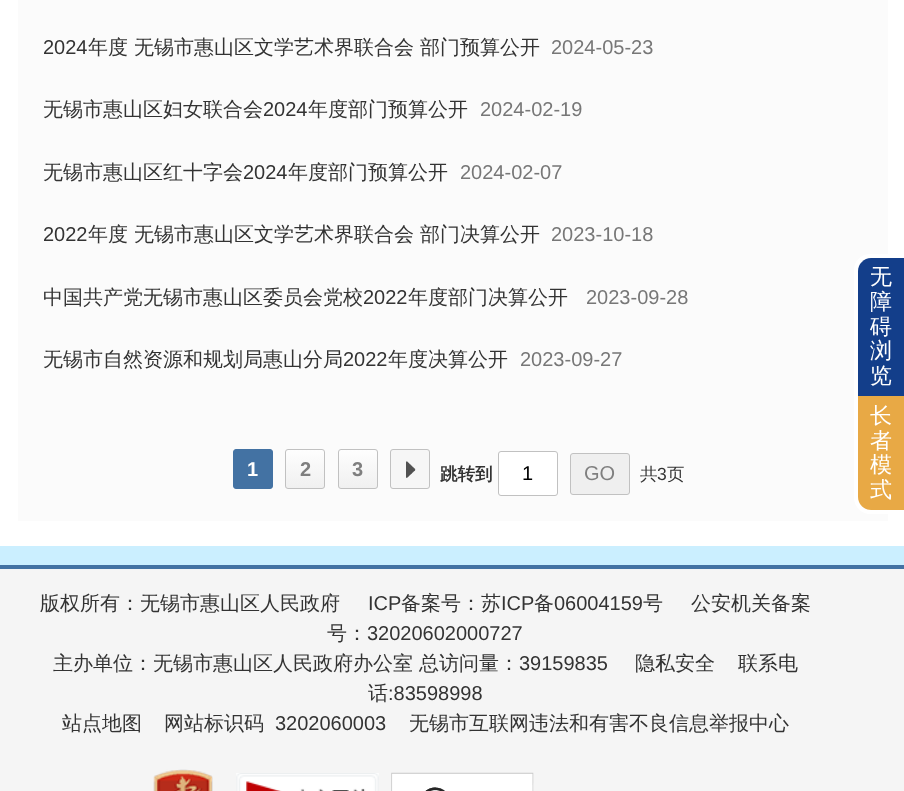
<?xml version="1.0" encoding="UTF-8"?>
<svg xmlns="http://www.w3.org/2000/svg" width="904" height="791">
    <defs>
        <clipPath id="clip1"><rect x="285" y="449" width="40" height="40" rx="3"/></clipPath>
        <linearGradient id="g1" gradientUnits="userSpaceOnUse" x1="305" y1="450" x2="305" y2="488"><stop offset="0" stop-color="#FEFEFE"/><stop offset="1" stop-color="#F0F0F0"/></linearGradient>
        <clipPath id="clip2"><rect x="338" y="449" width="40" height="40" rx="3"/></clipPath>
        <linearGradient id="g2" gradientUnits="userSpaceOnUse" x1="358" y1="450" x2="358" y2="488"><stop offset="0" stop-color="#FEFEFE"/><stop offset="1" stop-color="#F0F0F0"/></linearGradient>
    </defs>
    <rect width="100%" height="100%" fill="#CBEFFF"/>
    <rect x="0" y="0" width="904" height="546" fill="#FFFFFF"/>
    <rect x="18" y="0" width="870" height="521" fill="#FBFBFB"/>
    <text x="43" y="54" font-family="Liberation Sans" font-size="20" fill="#333333">2024</text>
    <text x="88" y="54" font-family="WenQuanYi Zen Hei" font-size="20" font-weight="500" fill="#333333">年度 无锡市惠山区文学艺术界联合会 部门预算公开</text>
    <text x="551" y="54" font-family="Liberation Sans" font-size="20" fill="#777777">2024-05-23</text>
    <text x="43" y="116" font-family="WenQuanYi Zen Hei" font-size="20" font-weight="500" fill="#333333">无锡市惠山区妇女联合会</text>
    <text x="263" y="116" font-family="Liberation Sans" font-size="20" fill="#333333">2024</text>
    <text x="308" y="116" font-family="WenQuanYi Zen Hei" font-size="20" font-weight="500" fill="#333333">年度部门预算公开</text>
    <text x="480" y="116" font-family="Liberation Sans" font-size="20" fill="#777777">2024-02-19</text>
    <text x="43" y="179" font-family="WenQuanYi Zen Hei" font-size="20" font-weight="500" fill="#333333">无锡市惠山区红十字会</text>
    <text x="243" y="179" font-family="Liberation Sans" font-size="20" fill="#333333">2024</text>
    <text x="288" y="179" font-family="WenQuanYi Zen Hei" font-size="20" font-weight="500" fill="#333333">年度部门预算公开</text>
    <text x="460" y="179" font-family="Liberation Sans" font-size="20" fill="#777777">2024-02-07</text>
    <text x="43" y="241" font-family="Liberation Sans" font-size="20" fill="#333333">2022</text>
    <text x="88" y="241" font-family="WenQuanYi Zen Hei" font-size="20" font-weight="500" fill="#333333">年度 无锡市惠山区文学艺术界联合会 部门决算公开</text>
    <text x="551" y="241" font-family="Liberation Sans" font-size="20" fill="#777777">2023-10-18</text>
    <text x="43" y="304" font-family="WenQuanYi Zen Hei" font-size="20" font-weight="500" fill="#333333">中国共产党无锡市惠山区委员会党校</text>
    <text x="363" y="304" font-family="Liberation Sans" font-size="20" fill="#333333">2022</text>
    <text x="408" y="304" font-family="WenQuanYi Zen Hei" font-size="20" font-weight="500" fill="#333333">年度部门决算公开</text>
    <text x="586" y="304" font-family="Liberation Sans" font-size="20" fill="#777777">2023-09-28</text>
    <text x="43" y="366" font-family="WenQuanYi Zen Hei" font-size="20" font-weight="500" fill="#333333">无锡市自然资源和规划局惠山分局</text>
    <text x="343" y="366" font-family="Liberation Sans" font-size="20" fill="#333333">2022</text>
    <text x="388" y="366" font-family="WenQuanYi Zen Hei" font-size="20" font-weight="500" fill="#333333">年度决算公开</text>
    <text x="520" y="366" font-family="Liberation Sans" font-size="20" fill="#777777">2023-09-27</text>
    <rect x="233.5" y="449.5" width="39" height="39" rx="2.5" fill="#4372A3" stroke="#4372A3"/>
    <text x="247" y="476" font-family="Liberation Sans" font-size="20" font-weight="700" fill="#FFFFFF">1</text>
    <g clip-path="url(#clip1)">
        <rect x="285" y="450" width="40" height="38" fill="url(#g1)"/>
    </g>
    <rect x="285.5" y="449.5" width="39" height="39" rx="2.5" fill="none" stroke="#C1C1C1"/>
    <text x="300" y="476" font-family="Liberation Sans" font-size="20" font-weight="700" fill="#7F7F7F">2</text>
    <g clip-path="url(#clip2)">
        <rect x="338" y="450" width="40" height="38" fill="url(#g2)"/>
    </g>
    <rect x="338.5" y="449.5" width="39" height="39" rx="2.5" fill="none" stroke="#C1C1C1"/>
    <text x="352" y="476" font-family="Liberation Sans" font-size="20" font-weight="700" fill="#7F7F7F">3</text>
    <rect x="390" y="449" width="40" height="40" rx="3" fill="#F6F6F6"/>
    <image x="406" y="461" width="10" height="17" href="img_01.png"/>
    <rect x="390.5" y="449.5" width="39" height="39" rx="2.5" fill="none" stroke="#C1C1C1"/>
    <text x="440" y="480" font-family="WenQuanYi Zen Hei" font-size="17.5" font-weight="700" fill="#333333">跳转到</text>
    <rect x="498.5" y="451.5" width="59" height="44" rx="2.5" fill="#FFFFFF" stroke="#C1C1C1"/>
    <text x="522" y="480" font-family="Liberation Sans" font-size="20" fill="#000000">1</text>
    <rect x="570.5" y="453.5" width="59" height="41" rx="2.5" fill="#EFEFEF" stroke="#C1C1C1"/>
    <text x="584" y="480" font-family="Liberation Sans" font-size="20" fill="#7F7F7F">GO</text>
    <text x="640" y="480" font-family="WenQuanYi Zen Hei" font-size="17.5" font-weight="500" fill="#333333">共</text>
    <text x="657" y="480" font-family="Liberation Sans" font-size="17.5" fill="#333333">3</text>
    <text x="667" y="480" font-family="WenQuanYi Zen Hei" font-size="17.5" font-weight="500" fill="#333333">页</text>
    <path d="M 870 254 H 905 V 514 H 870 C 861 514 854 506 854 498 V 270 C 854 261 861 254 870 254 Z M 870 258 H 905 V 510 H 870 C 863 510 858 504 858 498 V 270 C 858 263 863 258 870 258 Z" fill="#FFFFFF" fill-rule="evenodd"/>
    <path d="M 871 258 H 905 V 396 H 858 V 271 C 858 264 864 258 871 258 Z" fill="#133E8A"/>
    <text font-family="WenQuanYi Zen Hei" font-size="22" font-weight="500" fill="#FFFFFF">
        <tspan x="870" y="284">无</tspan>
        <tspan x="870" y="309">障</tspan>
        <tspan x="870" y="334">碍</tspan>
        <tspan x="870" y="358">浏</tspan>
        <tspan x="870" y="383">览</tspan>
    </text>
    <path d="M 858 396 H 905 V 510 H 871 C 864 510 858 504 858 497 Z" fill="#E8A945"/>
    <text font-family="WenQuanYi Zen Hei" font-size="22" font-weight="500" fill="#FFFFFF">
        <tspan x="870" y="423">长</tspan>
        <tspan x="870" y="448">者</tspan>
        <tspan x="870" y="472">模</tspan>
        <tspan x="870" y="497">式</tspan>
    </text>
    <rect x="0" y="569" width="904" height="222" fill="#F5F5F5"/>
    <rect x="0" y="565" width="904" height="4" fill="#4372A3"/>
    <text x="40" y="610" font-family="WenQuanYi Zen Hei" font-size="20" font-weight="500" fill="#333333">版权所有：无锡市惠山区人民政府</text>
    <text x="368" y="610" font-family="Liberation Sans" font-size="20" fill="#333333">ICP</text>
    <text x="401" y="610" font-family="WenQuanYi Zen Hei" font-size="20" font-weight="500" fill="#333333">备案号：苏</text>
    <text x="501" y="610" font-family="Liberation Sans" font-size="20" fill="#333333">ICP</text>
    <text x="534" y="610" font-family="WenQuanYi Zen Hei" font-size="20" font-weight="500" fill="#333333">备</text>
    <text x="554" y="610" font-family="Liberation Sans" font-size="20" fill="#333333">06004159</text>
    <text x="643" y="610" font-family="WenQuanYi Zen Hei" font-size="20" font-weight="500" fill="#333333">号</text>
    <text x="691" y="610" font-family="WenQuanYi Zen Hei" font-size="20" font-weight="500" fill="#333333">公安机关备案</text>
    <text x="327" y="640" font-family="WenQuanYi Zen Hei" font-size="20" font-weight="500" fill="#333333">号：</text>
    <text x="367" y="640" font-family="Liberation Sans" font-size="20" fill="#333333">32020602000727</text>
    <text x="53" y="670" font-family="WenQuanYi Zen Hei" font-size="20" font-weight="500" fill="#333333">主办单位：无锡市惠山区人民政府办公室</text>
    <text x="419" y="670" font-family="WenQuanYi Zen Hei" font-size="20" font-weight="500" fill="#333333">总访问量：</text>
    <text x="519" y="670" font-family="Liberation Sans" font-size="20" fill="#333333">39159835</text>
    <text x="635" y="670" font-family="WenQuanYi Zen Hei" font-size="20" font-weight="500" fill="#333333">隐私安全</text>
    <text x="738" y="670" font-family="WenQuanYi Zen Hei" font-size="20" font-weight="500" fill="#333333">联系电</text>
    <text x="368" y="700" font-family="WenQuanYi Zen Hei" font-size="20" font-weight="500" fill="#333333">话</text>
    <text x="388" y="700" font-family="Liberation Sans" font-size="20" fill="#333333">:83598998</text>
    <text x="62" y="730" font-family="WenQuanYi Zen Hei" font-size="20" font-weight="500" fill="#333333">站点地图</text>
    <text x="164" y="730" font-family="WenQuanYi Zen Hei" font-size="20" font-weight="500" fill="#333333">网站标识码</text>
    <text x="275" y="730" font-family="Liberation Sans" font-size="20" fill="#333333">3202060003</text>
    <text x="409" y="730" font-family="WenQuanYi Zen Hei" font-size="20" font-weight="500" fill="#333333">无锡市互联网违法和有害不良信息举报中心</text>
    <image x="153" y="769" width="60" height="22" href="img_02.png"/>
    <image x="236" y="773" width="143" height="18" href="img_03.png"/>
    <image x="391" y="772" width="143" height="19" href="img_04.png"/>
</svg>
